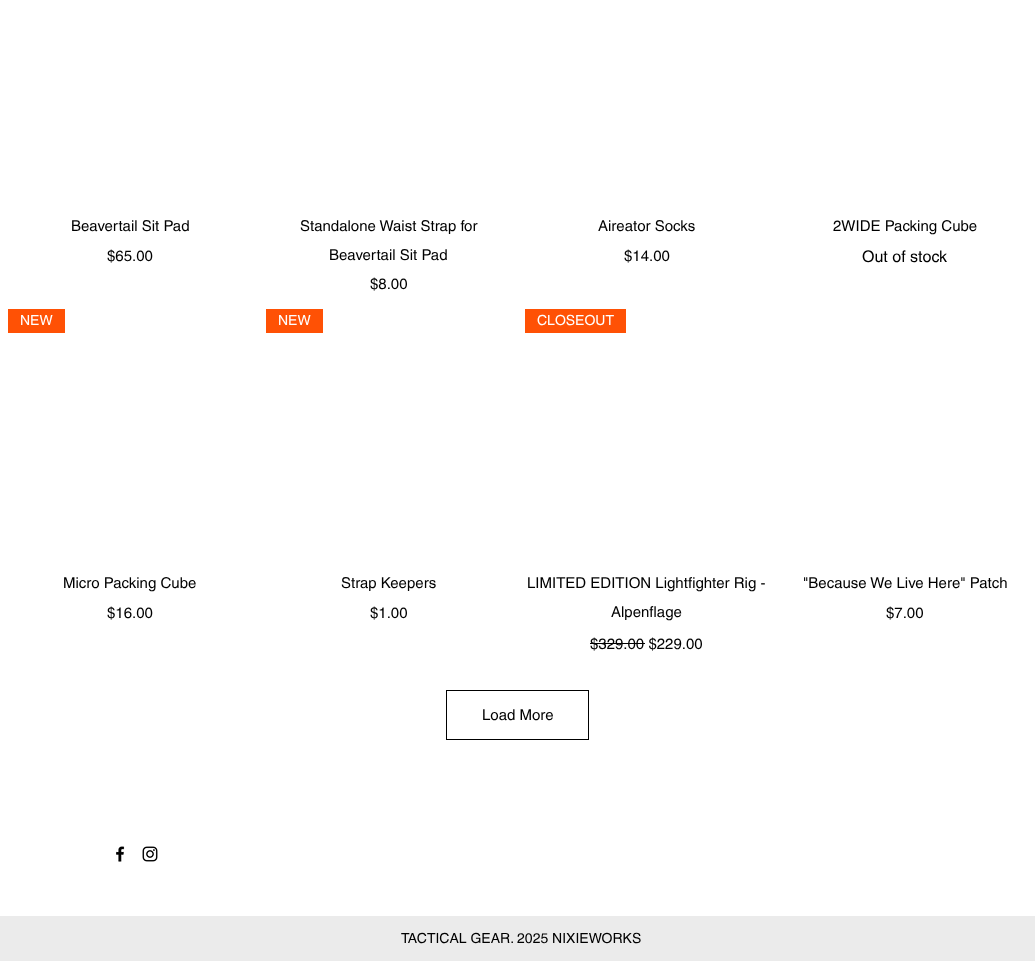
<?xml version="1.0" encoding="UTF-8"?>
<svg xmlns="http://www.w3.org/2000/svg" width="1035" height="964">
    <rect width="100%" height="100%" fill="#FFFFFF"/>
    <text x="71" y="231" font-family="helvetica" font-size="15" fill="#000000">Beavertail Sit Pad</text>
    <text x="107" y="261" font-family="helvetica" font-size="15" fill="#000000">$65.00</text>
    <text x="300" y="231" font-family="helvetica" font-size="15" fill="#000000">Standalone Waist Strap for</text>
    <text x="329" y="260" font-family="helvetica" font-size="15" fill="#000000">Beavertail Sit Pad</text>
    <text x="370" y="289" font-family="helvetica" font-size="15" fill="#000000">$8.00</text>
    <text x="598" y="231" font-family="helvetica" font-size="15" fill="#000000">Aireator Socks</text>
    <text x="624" y="261" font-family="helvetica" font-size="15" fill="#000000">$14.00</text>
    <text x="833" y="231" font-family="helvetica" font-size="15" fill="#000000">2WIDE Packing Cube</text>
    <text x="862" y="262" font-family="helvetica" font-size="16" fill="#000000">Out of stock</text>
    <rect x="8" y="309" width="57" height="24" fill="#FF5105"/>
    <text x="20" y="325" font-family="helvetica" font-size="14" fill="#FFFFFF">NEW</text>
    <text x="63" y="588" font-family="helvetica" font-size="15" fill="#000000">Micro Packing Cube</text>
    <text x="107" y="618" font-family="helvetica" font-size="15" fill="#000000">$16.00</text>
    <rect x="266" y="309" width="57" height="24" fill="#FF5105"/>
    <text x="278" y="325" font-family="helvetica" font-size="14" fill="#FFFFFF">NEW</text>
    <text x="341" y="588" font-family="helvetica" font-size="15" fill="#000000">Strap Keepers</text>
    <text x="370" y="618" font-family="helvetica" font-size="15" fill="#000000">$1.00</text>
    <rect x="525" y="309" width="101" height="24" fill="#FF5105"/>
    <text x="537" y="325" font-family="helvetica" font-size="14" fill="#FFFFFF">CLOSEOUT</text>
    <text x="527" y="588" font-family="helvetica" font-size="15" fill="#000000">LIMITED EDITION Lightfighter Rig -</text>
    <text x="611" y="617" font-family="helvetica" font-size="15" fill="#000000">Alpenflage</text>
    <text x="590" y="649" font-family="helvetica" font-size="15" fill="#000000">$329.00 $229.00</text>
    <rect x="590" y="643" width="55" height="1" fill="#000000"/>
    <text x="803" y="588" font-family="helvetica" font-size="15" fill="#000000">"Because We Live Here" Patch</text>
    <text x="886" y="618" font-family="helvetica" font-size="15" fill="#000000">$7.00</text>
    <rect x="446.5" y="690.5" width="142" height="49" fill="none" stroke="#000000"/>
    <text x="482" y="720" font-family="helvetica" font-size="15" fill="#000000">Load More</text>
    <image x="116" y="846" width="9" height="16" href="img_01.png"/>
    <image x="142" y="846" width="16" height="16" href="img_02.png"/>
    <rect x="0" y="916" width="1035" height="45" fill="#EBEBEB"/>
    <text x="401" y="943" font-family="helvetica" font-size="14" fill="#000000">TACTICAL GEAR. 2025 NIXIEWORKS</text>
</svg>
